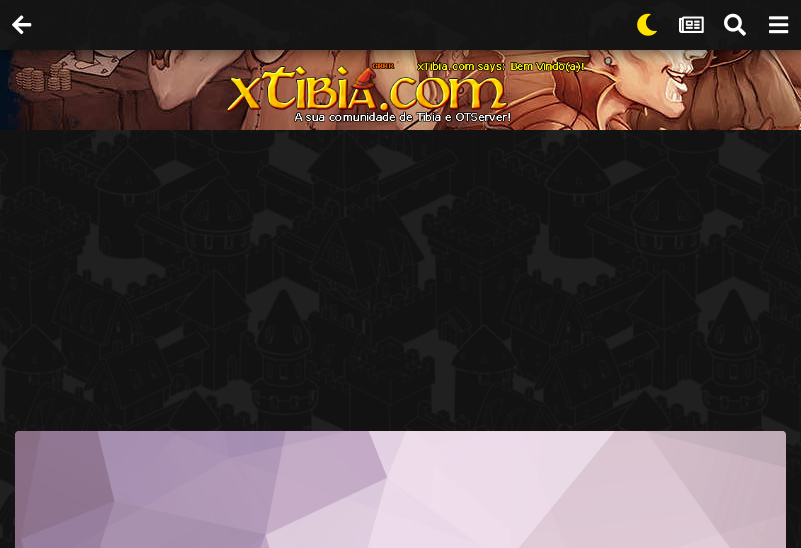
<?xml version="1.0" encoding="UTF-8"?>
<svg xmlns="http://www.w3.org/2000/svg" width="801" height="548">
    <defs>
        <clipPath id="clip1"><rect x="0" y="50" width="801" height="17"/></clipPath>
        <filter id="blur1" x="-50%" y="-200%" width="200%" height="500%"><feGaussianBlur stdDeviation="7.5"/></filter>
    </defs>
    <rect width="100%" height="100%" fill="#FFFFFF"/>
    <image x="0" y="0" width="801" height="548" href="img_01.png"/>
    <image x="0" y="50" width="801" height="80" href="img_07.png"/>
    <image x="226" y="61" width="359" height="61" href="img_08.png"/>
    <g clip-path="url(#clip1)">
        <rect x="0" y="4" width="801" height="50" fill="#000000" fill-opacity="0.53" filter="url(#blur1)"/>
    </g>
    <rect x="0" y="0" width="801" height="50" fill="#161616" fill-opacity="0.7"/>
    <image x="12" y="15" width="20" height="20" href="img_02.png"/>
    <image x="637" y="13" width="20" height="23" href="img_03.png"/>
    <image x="679" y="16" width="25" height="17" href="img_04.png"/>
    <image x="724" y="13" width="22" height="23" href="img_05.png"/>
    <image x="769" y="16" width="20" height="18" href="img_06.png"/>
    <path d="M 19 431 H 782 C 784 431 786 433 786 435 V 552 H 15 V 435 C 15 433 17 431 19 431 Z" fill="#FF99F0"/>
    <image x="15" y="431" width="771" height="117" href="img_09.png"/>
</svg>
